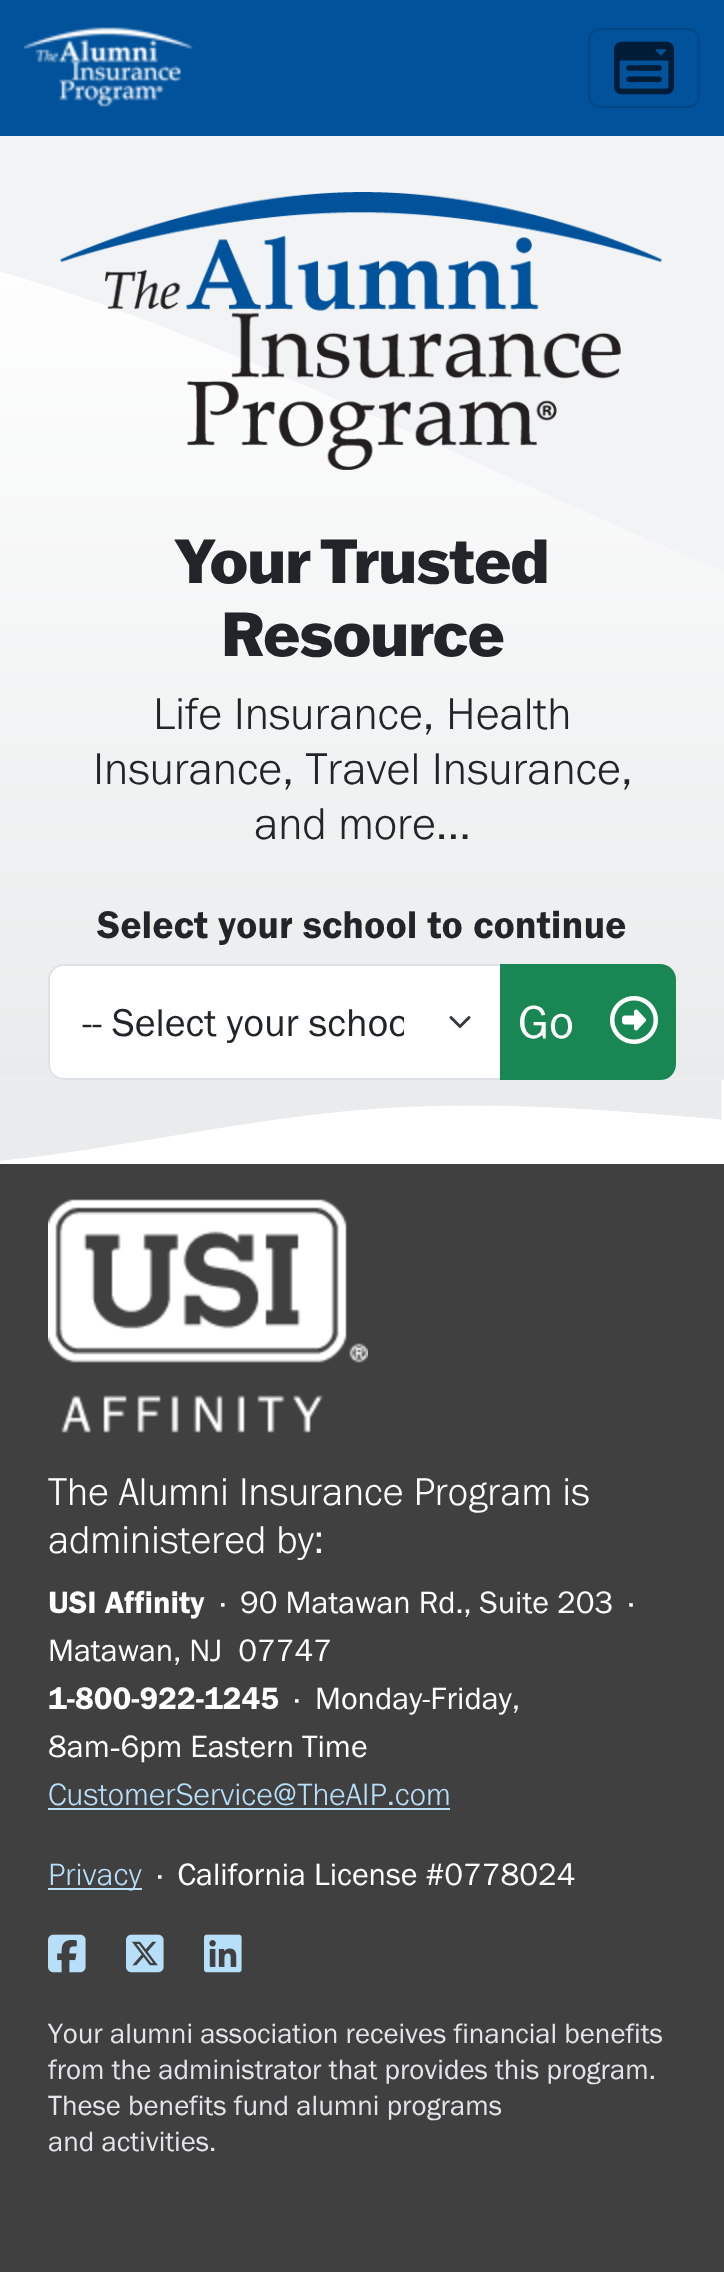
<?xml version="1.0" encoding="UTF-8"?>
<svg xmlns="http://www.w3.org/2000/svg" width="724" height="2293">
    <defs>
        <clipPath id="clip1"><rect x="82" y="992" width="322" height="60"/></clipPath>
    </defs>
    <rect width="100%" height="100%" fill="#FFFFFF"/>
    <rect x="0" y="0" width="724" height="136" fill="#00529B"/>
    <image x="24" y="27" width="169" height="80" href="img_01.png"/>
    <rect x="589" y="29" width="110" height="78" rx="11" fill="none" stroke="#004684" stroke-width="2"/>
    <image x="614" y="41" width="60" height="54" href="img_02.png"/>
    <rect x="0" y="136" width="724" height="944" fill="#F2F3F4"/>
    <image x="0" y="271" width="724" height="809" href="img_03.png"/>
    <image x="60" y="192" width="602" height="278" href="img_04.png"/>
    <text x="175" y="583" font-family="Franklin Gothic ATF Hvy" font-size="60.75" font-weight="900" letter-spacing="-1" fill="#212529">Your Trusted</text>
    <text x="221" y="656" font-family="Franklin Gothic ATF Hvy" font-size="60.75" font-weight="900" letter-spacing="-1" fill="#212529">Resource</text>
    <text x="153" y="729" font-family="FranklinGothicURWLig" font-size="46" fill="#212529">Life Insurance, Health</text>
    <text x="93" y="784" font-family="FranklinGothicURWLig" font-size="46" fill="#212529">Insurance, Travel Insurance,</text>
    <text x="254" y="839" font-family="FranklinGothicURWLig" font-size="46" fill="#212529">and more...</text>
    <text x="97" y="938" font-family="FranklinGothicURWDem" font-size="40" fill="#212529">Select your school to continue</text>
    <path d="M 64 964 H 502 V 1080 H 64 C 55 1080 48 1073 48 1064 V 980 C 48 971 55 964 64 964 Z" fill="#FFFFFF"/>
    <path d="M 451 1017.5 L 460 1026.5 L 469 1017.5" fill="none" stroke="#343A40" stroke-width="3" stroke-linecap="round" stroke-linejoin="round"/>
    <path d="M 64 965 H 501 V 1079 H 64 C 55.5 1079 49 1072.5 49 1064 V 980 C 49 971.5 55.5 965 64 965 Z" fill="none" stroke="#DEE2E6" stroke-width="2"/>
    <g clip-path="url(#clip1)">
        <text x="82" y="1036" font-family="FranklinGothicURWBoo" font-size="40" fill="#212529">-- Select your schoo</text>
    </g>
    <path d="M 501 965 H 660 C 668.5 965 675 971.5 675 980 V 1064 C 675 1072.5 668.5 1079 660 1079 H 501 Z" fill="#198754" stroke="#198754" stroke-width="2"/>
    <text x="518" y="1038" font-family="FranklinGothicURWBoo" font-size="48" fill="#FFFFFF">Go</text>
    <image x="610" y="996" width="48" height="48" href="img_05.png"/>
    <image x="0" y="1080" width="722" height="81" href="img_06.png"/>
    <rect x="0" y="1164" width="724" height="1108" fill="#404040"/>
    <image x="48" y="1199" width="320" height="234" href="img_07.png"/>
    <text font-family="FranklinGothicURWLig" font-size="40" fill="#FFFFFF">
        <tspan x="48" y="1505">The Alumni Insurance Program is</tspan>
        <tspan x="48" y="1553">administered by:</tspan>
    </text>
    <text x="48" y="1613" font-family="FranklinGothicURWDem" font-size="32" fill="#FFFFFF">USI Affinity</text>
    <text x="221" y="1613" font-family="FranklinGothicURWBoo" font-size="32" fill="#FFFFFF">·</text>
    <text x="240" y="1613" font-family="FranklinGothicURWBoo" font-size="32" fill="#FFFFFF" xml:space="preserve">90 Matawan Rd., Suite 203  ·</text>
    <text x="48" y="1661" font-family="FranklinGothicURWBoo" font-size="32" fill="#FFFFFF" xml:space="preserve">Matawan, NJ  07747</text>
    <text x="48" y="1709" font-family="FranklinGothicURWDem" font-size="32" fill="#FFFFFF">1-800-922-1245</text>
    <text x="295" y="1709" font-family="FranklinGothicURWBoo" font-size="32" fill="#FFFFFF">·</text>
    <text x="315" y="1709" font-family="FranklinGothicURWBoo" font-size="32" fill="#FFFFFF">Monday-Friday,</text>
    <text x="48" y="1757" font-family="FranklinGothicURWBoo" font-size="32" fill="#FFFFFF">8am‑6pm Eastern Time</text>
    <text x="48" y="1805" font-family="FranklinGothicURWLig" font-size="32" fill="#B8DFF9">CustomerService@TheAIP.com</text>
    <rect x="48" y="1808" width="402" height="2" fill="#B8DFF9"/>
    <rect x="48" y="1888" width="94" height="2" fill="#B8DFF9"/>
    <text x="48" y="1885" font-family="FranklinGothicURWLig" font-size="32" fill="#B8DFF9">Privacy</text>
    <text x="158" y="1885" font-family="FranklinGothicURWBoo" font-size="32" fill="#FFFFFF" xml:space="preserve">·  California License #0778024</text>
    <image x="48" y="1934" width="38" height="39" href="img_08.png"/>
    <image x="126" y="1934" width="38" height="39" href="img_09.png"/>
    <image x="204" y="1934" width="38" height="39" href="img_10.png"/>
    <text font-family="FranklinGothicURWBoo" font-size="28.8" fill="#E4E5E6">
        <tspan x="48" y="2043">Your alumni association receives financial benefits</tspan>
        <tspan x="48" y="2079">from the administrator that provides this program.</tspan>
        <tspan x="48" y="2115">These benefits fund alumni programs</tspan>
        <tspan x="48" y="2151">and activities.</tspan>
    </text>
</svg>
